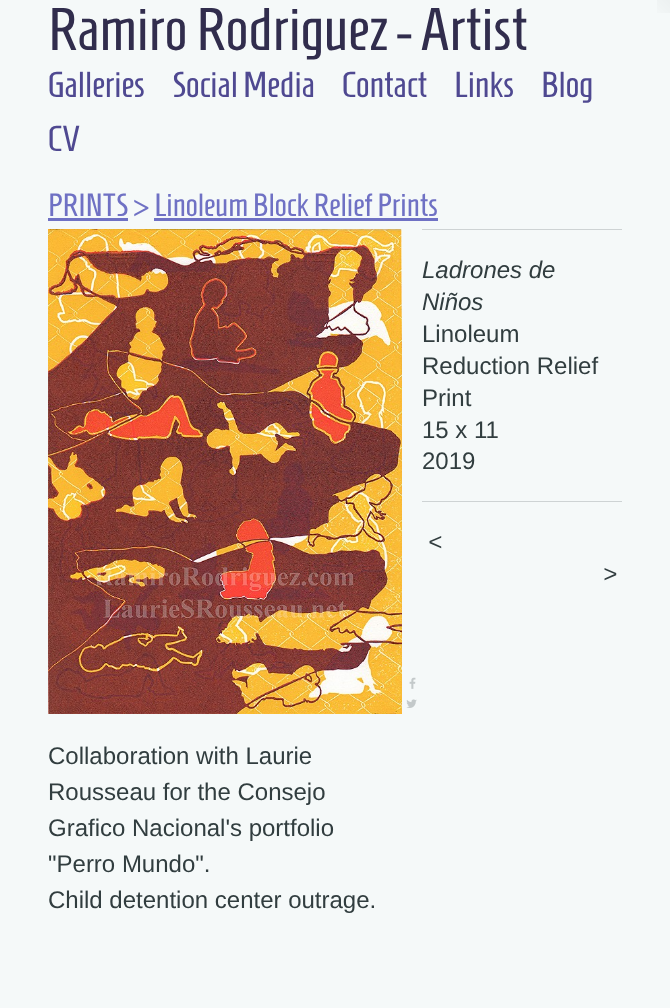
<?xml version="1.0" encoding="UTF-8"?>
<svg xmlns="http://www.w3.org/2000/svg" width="670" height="1008">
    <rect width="100%" height="100%" fill="#F5F9F9"/>
    <text x="48" y="50" font-family="Homenaje" font-size="60" fill="#312D4D">Ramiro Rodriguez - Artist</text>
    <image x="657" y="0" width="13" height="13" href="img_01.png"/>
    <text x="48" y="97" font-family="Homenaje" font-size="36" fill="#4F4991">Galleries</text>
    <text x="172" y="97" font-family="Homenaje" font-size="36" fill="#4F4991">Social Media</text>
    <text x="342" y="97" font-family="Homenaje" font-size="36" fill="#4F4991">Contact</text>
    <text x="454" y="97" font-family="Homenaje" font-size="36" fill="#4F4991">Links</text>
    <text x="541" y="97" font-family="Homenaje" font-size="36" fill="#4F4991">Blog</text>
    <text x="48" y="151" font-family="Homenaje" font-size="36" fill="#4F4991">CV</text>
    <text x="48" y="216" font-family="Homenaje" font-size="32" fill="#6F71C4">PRINTS &gt; Linoleum Block Relief Prints</text>
    <rect x="48" y="218" width="80" height="3" fill="#6F71C4"/>
    <rect x="154" y="218" width="284" height="3" fill="#6F71C4"/>
    <image x="48" y="229" width="354" height="485" href="img_02.png"/>
    <image x="409" y="677" width="7" height="12" href="img_03.png"/>
    <image x="406" y="699" width="11" height="9" href="img_04.png"/>
    <rect x="422" y="229" width="200" height="1" fill="#CED3D4"/>
    <text font-family="Liberation Sans" font-size="24" font-style="italic" fill="#313D3F">
        <tspan x="422" y="278">Ladrones de</tspan>
        <tspan x="422" y="310">Niños</tspan>
    </text>
    <text font-family="Liberation Sans" font-size="24" fill="#313D3F">
        <tspan x="422" y="342">Linoleum</tspan>
        <tspan x="422" y="374">Reduction Relief</tspan>
        <tspan x="422" y="406">Print</tspan>
        <tspan x="422" y="438">15 x 11</tspan>
        <tspan x="422" y="469">2019</tspan>
    </text>
    <rect x="422" y="501" width="200" height="1" fill="#CED3D4"/>
    <text x="428" y="550" font-family="Liberation Sans" font-size="24" font-style="italic" letter-spacing="1" fill="#313D3F">&lt;</text>
    <text x="603" y="582" font-family="Liberation Sans" font-size="24" font-style="italic" letter-spacing="1" fill="#313D3F">&gt;</text>
    <text font-family="Liberation Sans" font-size="24" fill="#313D3F">
        <tspan x="48" y="764">Collaboration with Laurie</tspan>
        <tspan x="48" y="800">Rousseau for the Consejo</tspan>
        <tspan x="48" y="836">Grafico Nacional's portfolio</tspan>
        <tspan x="48" y="872">"Perro Mundo".</tspan>
        <tspan x="48" y="908">Child detention center outrage.</tspan>
    </text>
</svg>
